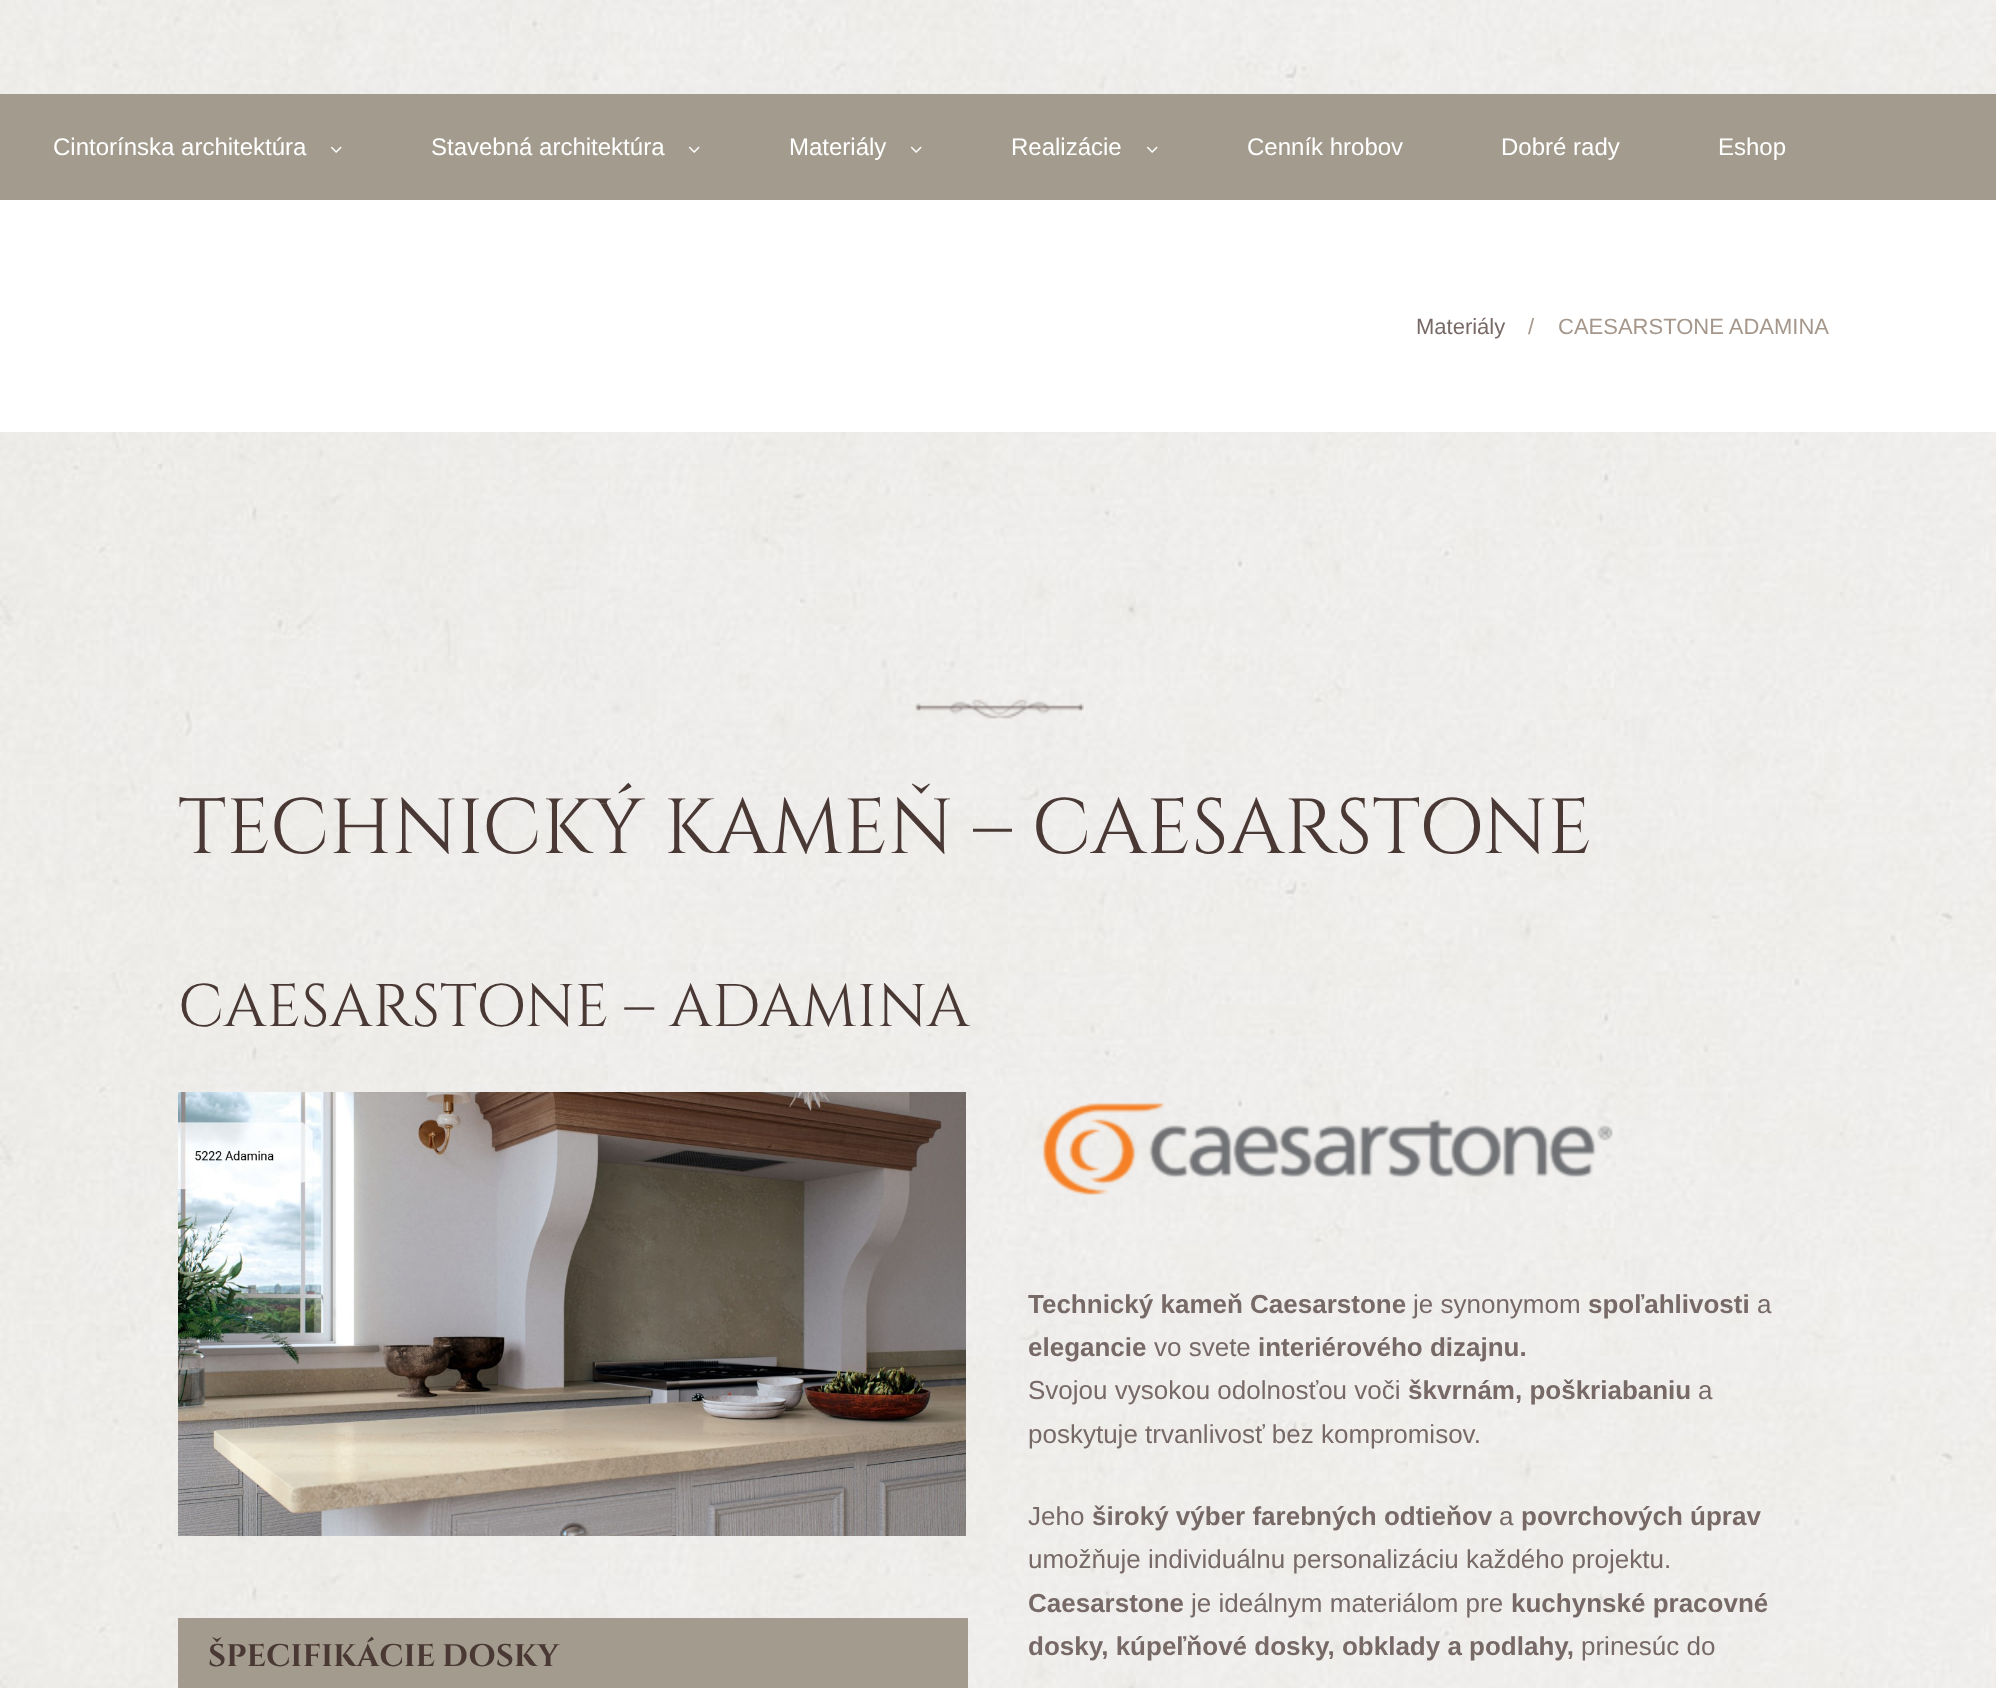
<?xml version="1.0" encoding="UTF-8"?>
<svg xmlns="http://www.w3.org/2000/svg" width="1996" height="1688">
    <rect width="100%" height="100%" fill="#FFFFFF"/>
    <image x="0" y="0" width="1996" height="94" href="img_01.png"/>
    <rect x="0" y="94" width="1996" height="106" fill="#A39C8E"/>
    <text x="53" y="155" font-family="Liberation Sans" font-size="24" fill="#FFFFFF">Cintorínska architektúra</text>
    <image x="330" y="146" width="12" height="7" href="img_02.png"/>
    <text x="431" y="155" font-family="Liberation Sans" font-size="24" fill="#FFFFFF">Stavebná architektúra</text>
    <image x="688" y="146" width="12" height="7" href="img_02.png"/>
    <text x="789" y="155" font-family="Liberation Sans" font-size="24" fill="#FFFFFF">Materiály</text>
    <image x="910" y="146" width="12" height="7" href="img_02.png"/>
    <text x="1011" y="155" font-family="Liberation Sans" font-size="24" fill="#FFFFFF">Realizácie</text>
    <image x="1146" y="146" width="12" height="7" href="img_02.png"/>
    <text x="1247" y="155" font-family="Liberation Sans" font-size="24" fill="#FFFFFF">Cenník hrobov</text>
    <text x="1501" y="155" font-family="Liberation Sans" font-size="24" fill="#FFFFFF">Dobré rady</text>
    <text x="1718" y="155" font-family="Liberation Sans" font-size="24" fill="#FFFFFF">Eshop</text>
    <text x="1416" y="334" font-family="Liberation Sans" font-size="22" fill="#766966">Materiály</text>
    <text x="1528" y="334" font-family="Liberation Sans" font-size="22" fill="#A5978B">/</text>
    <text x="1558" y="334" font-family="Liberation Sans" font-size="22" fill="#A5978B">CAESARSTONE ADAMINA</text>
    <image x="0" y="432" width="1996" height="1256" href="img_03.png"/>
    <image x="915" y="699" width="169" height="20" href="img_04.png"/>
    <text x="178" y="853" font-family="Cinzel" font-size="78" fill="#493834">TECHNICKÝ KAMEŇ – CAESARSTONE</text>
    <text x="178" y="1026" font-family="Cinzel" font-size="60" fill="#493834">CAESARSTONE – ADAMINA</text>
    <image x="178" y="1092" width="788" height="444" href="img_05.png"/>
    <rect x="178" y="1618" width="790" height="70" fill="#A39C8E"/>
    <text x="208" y="1666" word-spacing="-1" font-family="Cinzel" font-size="31.25" font-weight="700" fill="#493834">ŠPECIFIKÁCIE DOSKY</text>
    <image x="1042" y="1102" width="571" height="94" href="img_06.png"/>
    <text x="1028" y="1313" font-family="Liberation Sans" font-size="26" font-weight="700" fill="#766966">Technický kameň Caesarstone</text>
    <text x="1413" y="1313" font-family="Liberation Sans" font-size="26" fill="#766966">je synonymom</text>
    <text x="1588" y="1313" font-family="Liberation Sans" font-size="26" font-weight="700" fill="#766966">spoľahlivosti</text>
    <text x="1757" y="1313" font-family="Liberation Sans" font-size="26" fill="#766966">a</text>
    <text x="1028" y="1356" font-family="Liberation Sans" font-size="26" font-weight="700" fill="#766966">elegancie</text>
    <text x="1154" y="1356" font-family="Liberation Sans" font-size="26" fill="#766966">vo svete</text>
    <text x="1258" y="1356" font-family="Liberation Sans" font-size="26" font-weight="700" fill="#766966">interiérového dizajnu.</text>
    <text x="1028" y="1399" font-family="Liberation Sans" font-size="26" fill="#766966">Svojou vysokou odolnosťou voči</text>
    <text x="1408" y="1399" font-family="Liberation Sans" font-size="26" font-weight="700" fill="#766966">škvrnám, poškriabaniu</text>
    <text x="1698" y="1399" font-family="Liberation Sans" font-size="26" fill="#766966">a</text>
    <text x="1028" y="1443" font-family="Liberation Sans" font-size="26" fill="#766966">poskytuje trvanlivosť bez kompromisov.</text>
    <text x="1028" y="1525" font-family="Liberation Sans" font-size="26" fill="#766966">Jeho</text>
    <text x="1092" y="1525" font-family="Liberation Sans" font-size="26" font-weight="700" fill="#766966">široký výber farebných odtieňov</text>
    <text x="1499" y="1525" font-family="Liberation Sans" font-size="26" fill="#766966">a</text>
    <text x="1521" y="1525" font-family="Liberation Sans" font-size="26" font-weight="700" fill="#766966">povrchových úprav</text>
    <text x="1028" y="1568" font-family="Liberation Sans" font-size="26" fill="#766966">umožňuje individuálnu personalizáciu každého projektu.</text>
    <text x="1028" y="1612" font-family="Liberation Sans" font-size="26" font-weight="700" fill="#766966">Caesarstone</text>
    <text x="1191" y="1612" font-family="Liberation Sans" font-size="26" fill="#766966">je ideálnym materiálom pre</text>
    <text x="1511" y="1612" font-family="Liberation Sans" font-size="26" font-weight="700" fill="#766966">kuchynské pracovné</text>
    <text x="1028" y="1655" font-family="Liberation Sans" font-size="26" font-weight="700" fill="#766966">dosky, kúpeľňové dosky, obklady a podlahy,</text>
    <text x="1581" y="1655" font-family="Liberation Sans" font-size="26" fill="#766966">prinesúc do</text>
</svg>
